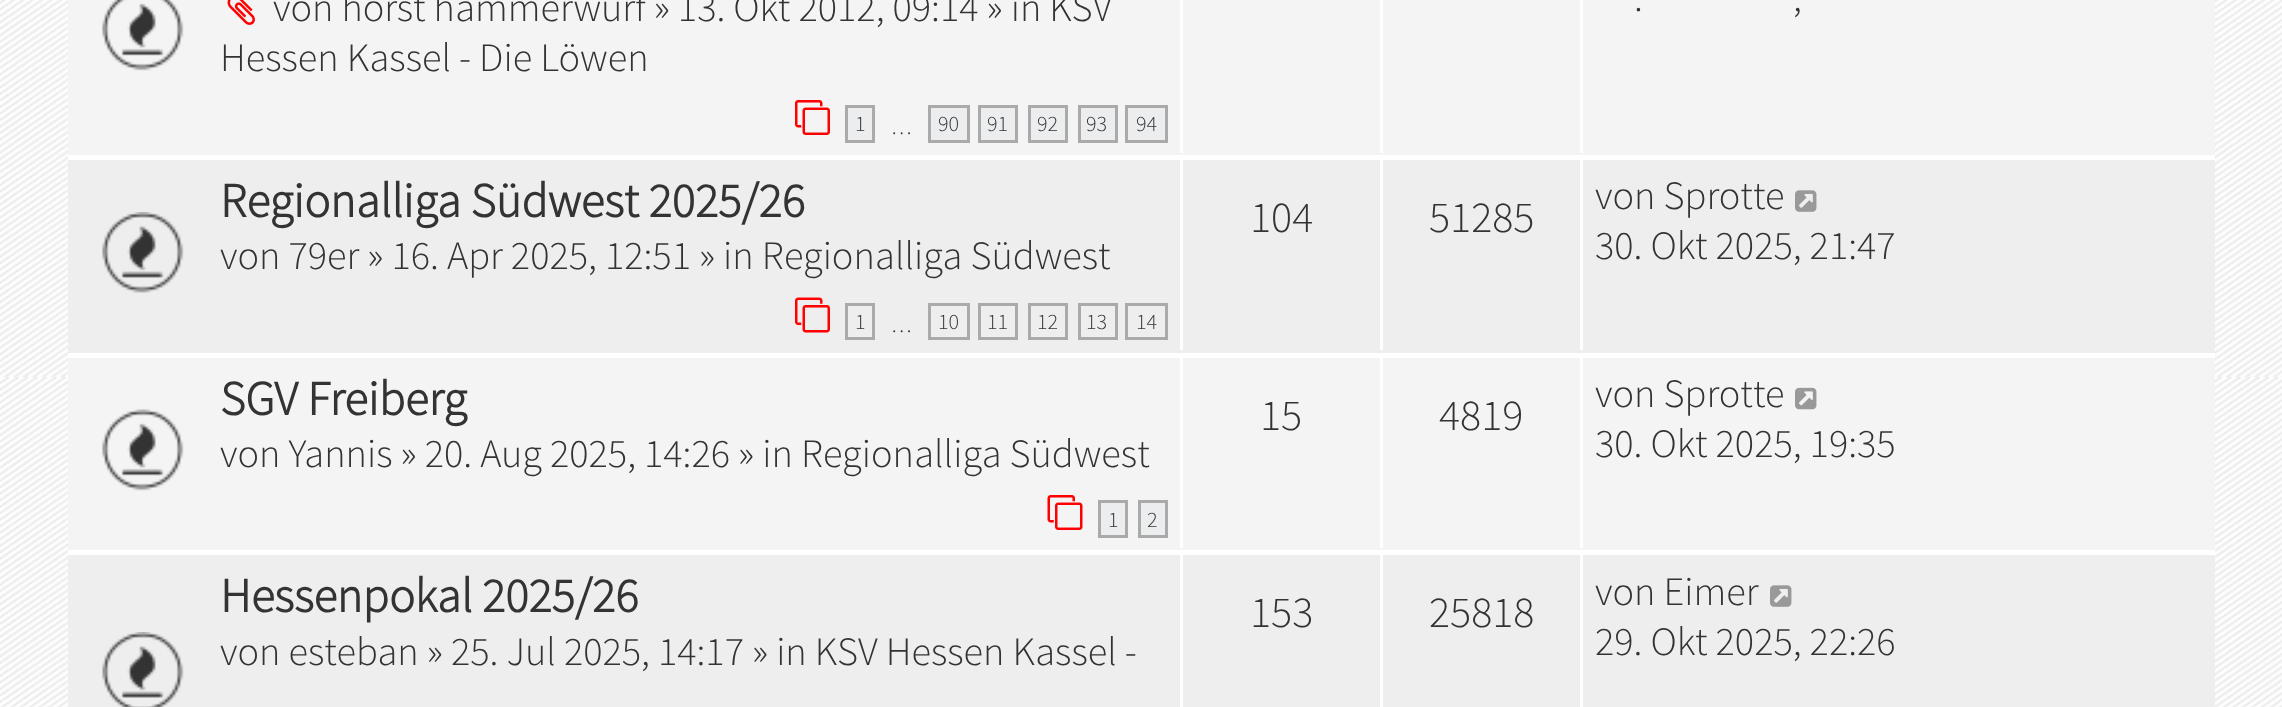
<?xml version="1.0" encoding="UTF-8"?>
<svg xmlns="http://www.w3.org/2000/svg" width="2282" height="707">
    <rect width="100%" height="100%" fill="#FFFFFF"/>
    <image x="0" y="0" width="2282" height="707" href="img_01.png"/>
    <rect x="68" y="0" width="2147" height="155" fill="#F4F4F4"/>
    <image x="102" y="0" width="82" height="71" href="img_02.png"/>
    <image x="227" y="0" width="28" height="25" href="img_03.png"/>
    <text x="273" y="21" font-family="Source Sans Pro" font-size="40.3" font-weight="300" fill="#333333">von horst hammerwurf » 13. Okt 2012, 09:14 » in KSV</text>
    <text x="220" y="71" font-family="Source Sans Pro" font-size="40.3" font-weight="300" fill="#333333">Hessen Kassel - Die Löwen</text>
    <image x="795" y="100" width="35" height="35" href="img_04.png"/>
    <rect x="846.5" y="106.5" width="27" height="35" fill="#ECEDEE" stroke="#AAAAAA" stroke-width="3"/>
    <text x="855" y="131" font-family="Source Sans Pro" font-size="22" font-weight="300" fill="#333333">1</text>
    <rect x="929.5" y="106.5" width="39" height="35" fill="#ECEDEE" stroke="#AAAAAA" stroke-width="3"/>
    <text x="938" y="131" font-family="Source Sans Pro" font-size="22" font-weight="300" fill="#333333">90</text>
    <rect x="979.5" y="106.5" width="37" height="35" fill="#ECEDEE" stroke="#AAAAAA" stroke-width="3"/>
    <text x="987" y="131" font-family="Source Sans Pro" font-size="22" font-weight="300" fill="#333333">91</text>
    <rect x="1029.5" y="106.5" width="37" height="35" fill="#ECEDEE" stroke="#AAAAAA" stroke-width="3"/>
    <text x="1037" y="131" font-family="Source Sans Pro" font-size="22" font-weight="300" fill="#333333">92</text>
    <rect x="1079.5" y="106.5" width="37" height="35" fill="#ECEDEE" stroke="#AAAAAA" stroke-width="3"/>
    <text x="1086" y="131" font-family="Source Sans Pro" font-size="22" font-weight="300" fill="#333333">93</text>
    <rect x="1126.5" y="106.5" width="40" height="35" fill="#ECEDEE" stroke="#AAAAAA" stroke-width="3"/>
    <text x="1136" y="131" font-family="Source Sans Pro" font-size="22" font-weight="300" fill="#333333">94</text>
    <text x="891" y="134" font-family="Source Sans Pro" font-size="22" font-weight="300" fill="#333333">…</text>
    <rect x="1180" y="0" width="3" height="153" fill="#FFFFFF"/>
    <rect x="1380" y="0" width="3" height="153" fill="#FFFFFF"/>
    <rect x="1580" y="0" width="3" height="153" fill="#FFFFFF"/>
    <text x="1634" y="11" font-family="Source Sans Pro" font-size="40.3" font-weight="300" fill="#333333">.</text>
    <text x="1793" y="11" font-family="Source Sans Pro" font-size="40.3" font-weight="300" fill="#333333">,</text>
    <rect x="68" y="160" width="2147" height="193" fill="#EEEEEE"/>
    <rect x="68" y="155" width="2147" height="5" fill="#FFFFFF"/>
    <image x="102" y="212" width="82" height="81" href="img_05.png"/>
    <text x="220" y="217" font-family="Source Sans Pro" font-size="48.4" font-weight="700" fill="#333333">Regionalliga Südwest 2025/26</text>
    <text x="220" y="269" font-family="Source Sans Pro" font-size="40.3" font-weight="300" fill="#333333">von 79er » 16. Apr 2025, 12:51 » in Regionalliga Südwest</text>
    <image x="795" y="297" width="35" height="36" href="img_06.png"/>
    <rect x="846.5" y="304.5" width="27" height="34" fill="none" stroke="#AAAAAA" stroke-width="3"/>
    <text x="855" y="329" font-family="Source Sans Pro" font-size="22" font-weight="300" fill="#333333">1</text>
    <rect x="929.5" y="304.5" width="39" height="34" fill="none" stroke="#AAAAAA" stroke-width="3"/>
    <text x="938" y="329" font-family="Source Sans Pro" font-size="22" font-weight="300" fill="#333333">10</text>
    <rect x="979.5" y="304.5" width="37" height="34" fill="none" stroke="#AAAAAA" stroke-width="3"/>
    <text x="987" y="329" font-family="Source Sans Pro" font-size="22" font-weight="300" fill="#333333">11</text>
    <rect x="1029.5" y="304.5" width="37" height="34" fill="none" stroke="#AAAAAA" stroke-width="3"/>
    <text x="1037" y="329" font-family="Source Sans Pro" font-size="22" font-weight="300" fill="#333333">12</text>
    <rect x="1079.5" y="304.5" width="37" height="34" fill="none" stroke="#AAAAAA" stroke-width="3"/>
    <text x="1086" y="329" font-family="Source Sans Pro" font-size="22" font-weight="300" fill="#333333">13</text>
    <rect x="1126.5" y="304.5" width="40" height="34" fill="none" stroke="#AAAAAA" stroke-width="3"/>
    <text x="1136" y="329" font-family="Source Sans Pro" font-size="22" font-weight="300" fill="#333333">14</text>
    <text x="891" y="332" font-family="Source Sans Pro" font-size="22" font-weight="300" fill="#333333">…</text>
    <rect x="1180" y="160" width="3" height="190" fill="#FFFFFF"/>
    <text x="1250" y="232" font-family="Source Sans Pro" font-size="44" font-weight="300" fill="#333333">104</text>
    <rect x="1380" y="160" width="3" height="190" fill="#FFFFFF"/>
    <text x="1429" y="232" font-family="Source Sans Pro" font-size="44" font-weight="300" fill="#333333">51285</text>
    <rect x="1580" y="160" width="3" height="190" fill="#FFFFFF"/>
    <text x="1595" y="209" font-family="Source Sans Pro" font-size="40.3" font-weight="300" fill="#333333">von Sprotte</text>
    <image x="1795" y="190" width="22" height="22" href="img_07.png"/>
    <text x="1595" y="259" font-family="Source Sans Pro" font-size="40.3" font-weight="300" fill="#333333">30. Okt 2025, 21:47</text>
    <rect x="68" y="358" width="2147" height="192" fill="#F4F4F4"/>
    <rect x="68" y="353" width="2147" height="5" fill="#FFFFFF"/>
    <image x="102" y="409" width="82" height="82" href="img_08.png"/>
    <text x="220" y="415" font-family="Source Sans Pro" font-size="48.4" font-weight="700" fill="#333333">SGV Freiberg</text>
    <text x="220" y="467" font-family="Source Sans Pro" font-size="40.3" font-weight="300" fill="#333333">von Yannis » 20. Aug 2025, 14:26 » in Regionalliga Südwest</text>
    <image x="1047" y="495" width="36" height="35" href="img_09.png"/>
    <rect x="1099.5" y="501.5" width="27" height="35" fill="#ECEDEE" stroke="#AAAAAA" stroke-width="3"/>
    <text x="1108" y="527" font-family="Source Sans Pro" font-size="22" font-weight="300" fill="#333333">1</text>
    <rect x="1139.5" y="501.5" width="27" height="35" fill="#ECEDEE" stroke="#AAAAAA" stroke-width="3"/>
    <text x="1147" y="527" font-family="Source Sans Pro" font-size="22" font-weight="300" fill="#333333">2</text>
    <rect x="1180" y="358" width="3" height="190" fill="#FFFFFF"/>
    <text x="1260" y="430" font-family="Source Sans Pro" font-size="44" font-weight="300" fill="#333333">15</text>
    <rect x="1380" y="358" width="3" height="190" fill="#FFFFFF"/>
    <text x="1439" y="430" font-family="Source Sans Pro" font-size="44" font-weight="300" fill="#333333">4819</text>
    <rect x="1580" y="358" width="3" height="190" fill="#FFFFFF"/>
    <text x="1595" y="407" font-family="Source Sans Pro" font-size="40.3" font-weight="300" fill="#333333">von Sprotte</text>
    <image x="1795" y="387" width="22" height="23" href="img_10.png"/>
    <text x="1595" y="457" font-family="Source Sans Pro" font-size="40.3" font-weight="300" fill="#333333">30. Okt 2025, 19:35</text>
    <rect x="68" y="555" width="2147" height="152" fill="#EEEEEE"/>
    <rect x="68" y="550" width="2147" height="5" fill="#FFFFFF"/>
    <image x="102" y="632" width="82" height="75" href="img_11.png"/>
    <text x="220" y="612" font-family="Source Sans Pro" font-size="48.4" font-weight="700" fill="#333333">Hessenpokal 2025/26</text>
    <text x="220" y="665" font-family="Source Sans Pro" font-size="40.3" font-weight="300" fill="#333333">von esteban » 25. Jul 2025, 14:17 » in KSV Hessen Kassel -</text>
    <rect x="1180" y="555" width="3" height="152" fill="#FFFFFF"/>
    <text x="1250" y="627" font-family="Source Sans Pro" font-size="44" font-weight="300" fill="#333333">153</text>
    <rect x="1380" y="555" width="3" height="152" fill="#FFFFFF"/>
    <text x="1429" y="627" font-family="Source Sans Pro" font-size="44" font-weight="300" fill="#333333">25818</text>
    <rect x="1580" y="555" width="3" height="152" fill="#FFFFFF"/>
    <text x="1595" y="605" font-family="Source Sans Pro" font-size="40.3" font-weight="300" fill="#333333">von Eimer</text>
    <image x="1770" y="585" width="22" height="22" href="img_07.png"/>
    <text x="1595" y="655" font-family="Source Sans Pro" font-size="40.3" font-weight="300" fill="#333333">29. Okt 2025, 22:26</text>
</svg>
